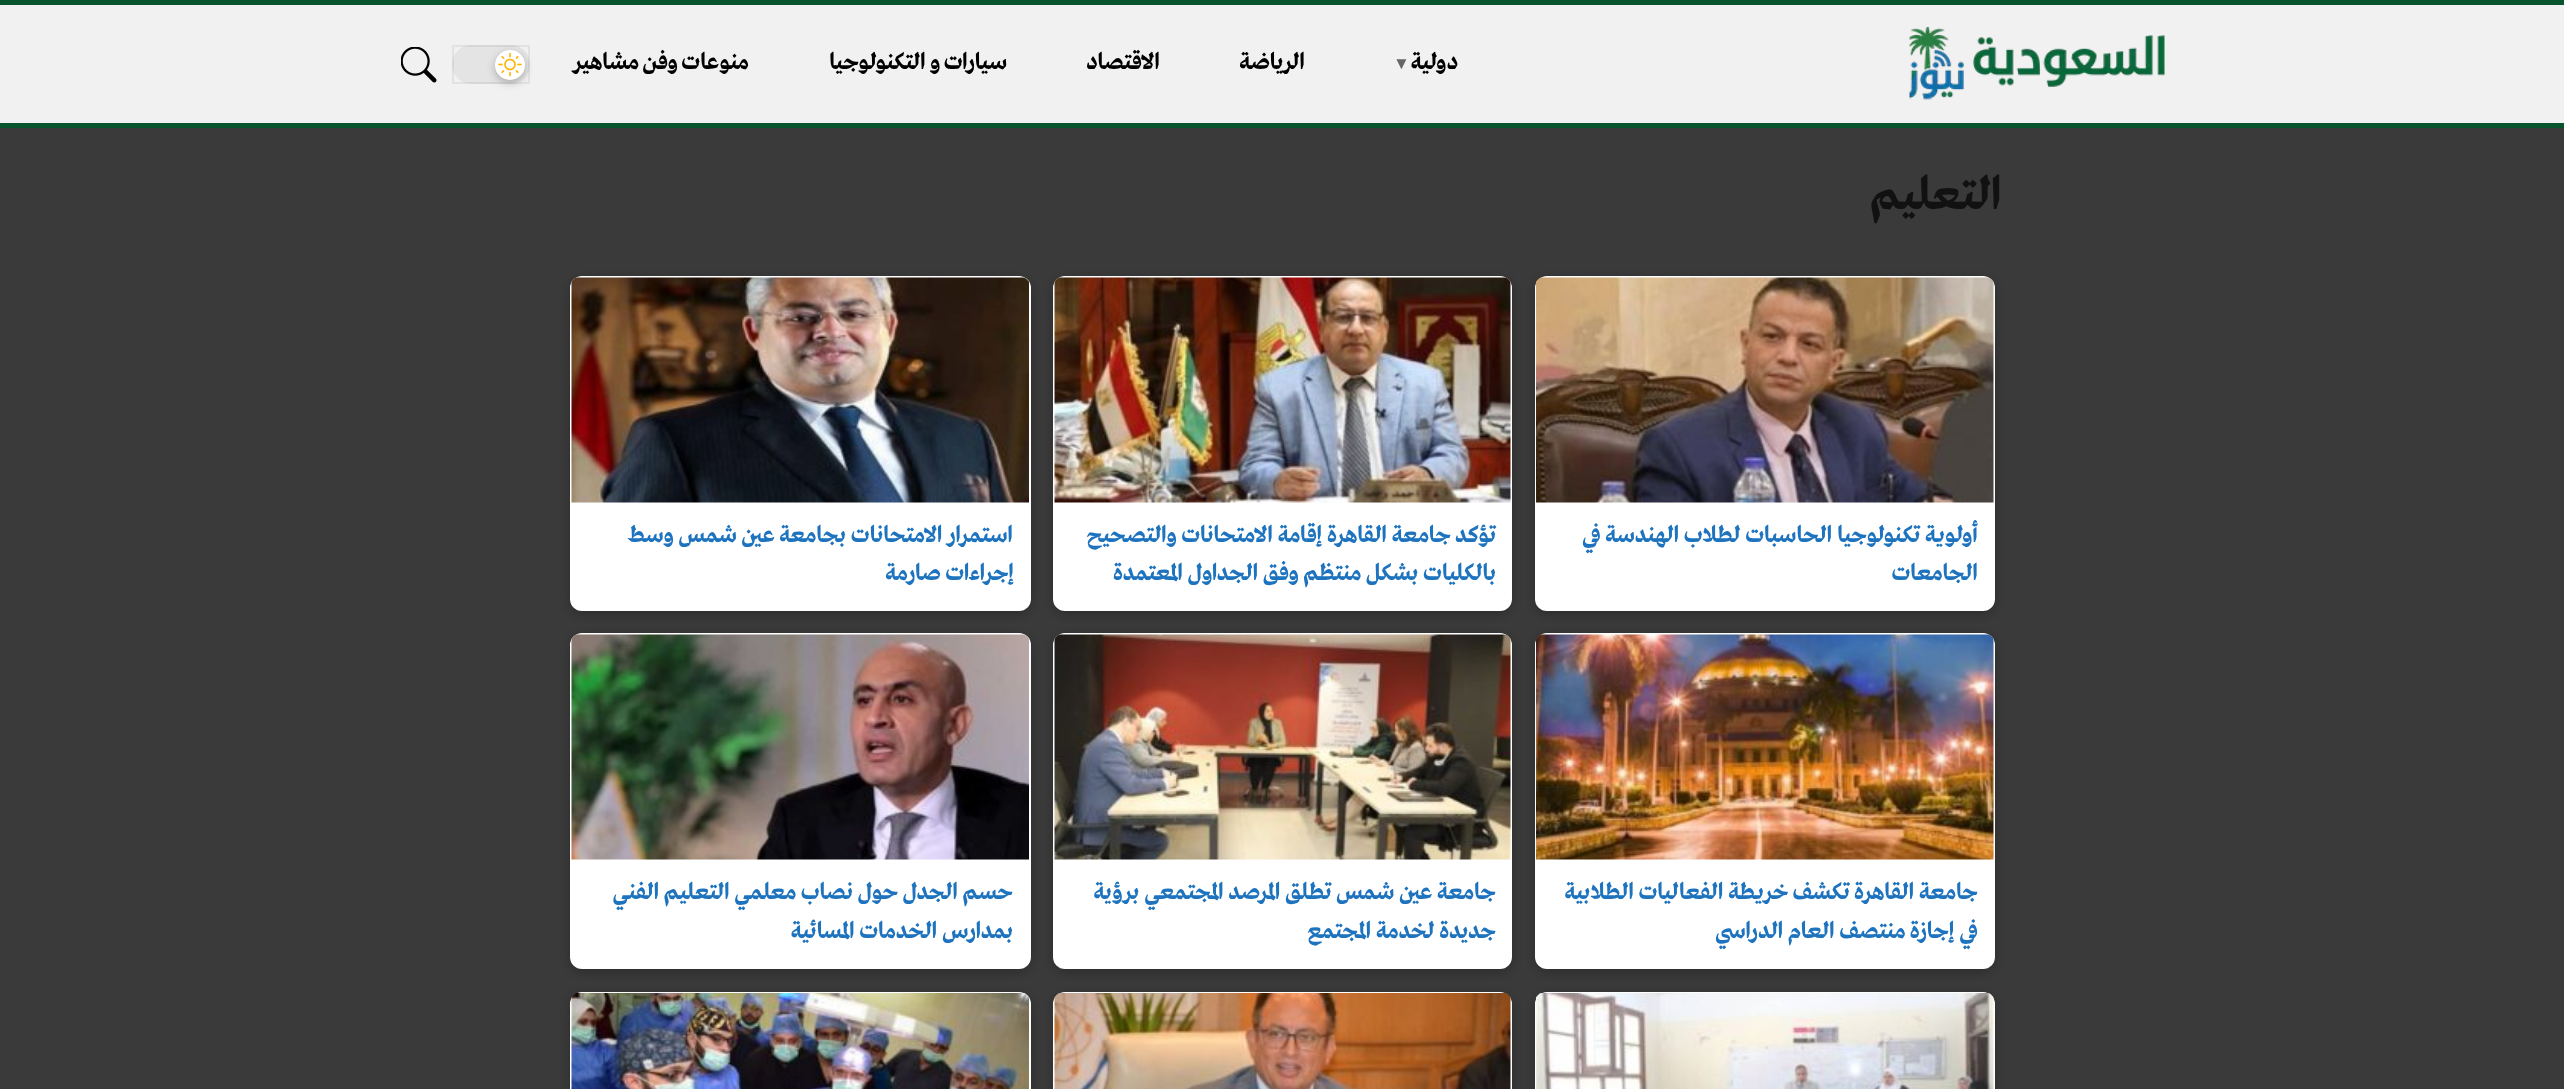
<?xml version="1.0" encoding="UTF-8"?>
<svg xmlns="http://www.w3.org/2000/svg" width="2564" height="1089">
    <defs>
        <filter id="blur1" x="-50%" y="-200%" width="200%" height="500%"><feGaussianBlur stdDeviation="4"/></filter>
        <filter id="blur2" x="-50%" y="-200%" width="200%" height="500%"><feGaussianBlur stdDeviation="6"/></filter>
    </defs>
    <rect width="100%" height="100%" fill="#3A3A3A"/>
    <rect x="0" y="5" width="2564" height="118" fill="#F1F1F1"/>
    <rect x="0" y="0" width="2564" height="5" fill="#08542F"/>
    <rect x="0" y="123" width="2564" height="5" fill="#08542F"/>
    <image x="1909" y="27" width="256" height="73" href="img_01.png"/>
    <text x="1458" y="69" font-family="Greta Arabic" font-size="24" font-weight="700" letter-spacing="0.1" direction="rtl" fill="#000000">دولية</text>
    <text x="1393" y="69" font-family="Liberation Serif" font-size="17" font-weight="700" letter-spacing="0.1" fill="#666666">▼</text>
    <text x="1305" y="69" font-family="Greta Arabic" font-size="24" font-weight="700" letter-spacing="0.1" direction="rtl" fill="#000000">الرياضة</text>
    <text x="1160" y="69" font-family="Greta Arabic" font-size="24" font-weight="700" letter-spacing="0.1" direction="rtl" fill="#000000">الاقتصاد</text>
    <text x="1007" y="69" word-spacing="-1" font-family="Greta Arabic" font-size="24" font-weight="700" letter-spacing="0.1" direction="rtl" fill="#000000">سيارات و التكنولوجيا</text>
    <text x="749" y="69" word-spacing="-1" font-family="Greta Arabic" font-size="24" font-weight="700" letter-spacing="0.1" direction="rtl" fill="#000000">منوعات وفن مشاهير</text>
    <rect x="452" y="45" width="78" height="39" rx="19.5" fill="#E4E4E4"/>
    <rect x="453" y="46" width="76" height="37" fill="none" stroke="#000000" stroke-opacity="0.06" stroke-width="2"/>
    <rect x="495" y="53" width="30" height="30" rx="15" fill="#000000" fill-opacity="0.25" filter="url(#blur1)"/>
    <circle cx="510" cy="65" r="15" fill="#FFFFFF"/>
    <image x="498" y="53" width="24" height="24" href="img_02.png"/>
    <image x="401" y="47" width="36" height="36" href="img_03.png"/>
    <text x="2002" y="209" font-family="Greta Arabic" font-size="48" font-weight="700" direction="rtl" fill="#111111">التعليم</text>
    <rect x="1535" y="279" width="460" height="335" rx="12" fill="#000000" fill-opacity="0.25" filter="url(#blur2)"/>
    <rect x="1535" y="276" width="460" height="335" rx="12" fill="#FFFFFF"/>
    <image x="1536" y="277" width="458" height="226" href="img_04.png"/>
    <text font-family="Greta Arabic" font-size="24" font-weight="700" direction="rtl" fill="#1E73BE">
        <tspan x="1978" y="542">أولوية تكنولوجيا الحاسبات لطلاب الهندسة في</tspan>
        <tspan x="1978" y="580">الجامعات</tspan>
    </text>
    <rect x="1053" y="279" width="459" height="335" rx="12" fill="#000000" fill-opacity="0.25" filter="url(#blur2)"/>
    <rect x="1053" y="276" width="459" height="335" rx="12" fill="#FFFFFF"/>
    <image x="1054" y="277" width="457" height="226" href="img_05.png"/>
    <text font-family="Greta Arabic" font-size="24" font-weight="700" direction="rtl" fill="#1E73BE">
        <tspan x="1496" y="542">تؤكد جامعة القاهرة إقامة الامتحانات والتصحيح</tspan>
        <tspan x="1496" y="580">بالكليات بشكل منتظم وفق الجداول المعتمدة</tspan>
    </text>
    <rect x="570" y="279" width="461" height="335" rx="12" fill="#000000" fill-opacity="0.25" filter="url(#blur2)"/>
    <rect x="570" y="276" width="461" height="335" rx="12" fill="#FFFFFF"/>
    <image x="571" y="277" width="458" height="226" href="img_06.png"/>
    <text x="1013" y="542" font-family="Greta Arabic" font-size="24" font-weight="700" direction="rtl" fill="#1E73BE">استمرار الامتحانات بجامعة عين شمس وسط</text>
    <text x="1014" y="580" font-family="Greta Arabic" font-size="24" font-weight="700" direction="rtl" fill="#1E73BE">إجراءات صارمة</text>
    <rect x="1535" y="636" width="460" height="336" rx="12" fill="#000000" fill-opacity="0.25" filter="url(#blur2)"/>
    <rect x="1535" y="633" width="460" height="336" rx="12" fill="#FFFFFF"/>
    <image x="1536" y="634" width="458" height="226" href="img_07.png"/>
    <text font-family="Greta Arabic" font-size="24" font-weight="700" direction="rtl" fill="#1E73BE">
        <tspan x="1978" y="899">جامعة القاهرة تكشف خريطة الفعاليات الطلابية</tspan>
        <tspan x="1978" y="938">في إجازة منتصف العام الدراسي</tspan>
    </text>
    <rect x="1053" y="636" width="459" height="336" rx="12" fill="#000000" fill-opacity="0.25" filter="url(#blur2)"/>
    <rect x="1053" y="633" width="459" height="336" rx="12" fill="#FFFFFF"/>
    <image x="1054" y="634" width="457" height="226" href="img_08.png"/>
    <text font-family="Greta Arabic" font-size="24" font-weight="700" direction="rtl" fill="#1E73BE">
        <tspan x="1496" y="899">جامعة عين شمس تطلق المرصد المجتمعي برؤية</tspan>
        <tspan x="1496" y="938">جديدة لخدمة المجتمع</tspan>
    </text>
    <rect x="570" y="636" width="461" height="336" rx="12" fill="#000000" fill-opacity="0.25" filter="url(#blur2)"/>
    <rect x="570" y="633" width="461" height="336" rx="12" fill="#FFFFFF"/>
    <image x="571" y="634" width="458" height="226" href="img_09.png"/>
    <text font-family="Greta Arabic" font-size="24" font-weight="700" direction="rtl" fill="#1E73BE">
        <tspan x="1013" y="899">حسم الجدل حول نصاب معلمي التعليم الفني</tspan>
        <tspan x="1013" y="938">بمدارس الخدمات المسائية</tspan>
    </text>
    <rect x="1535" y="995" width="460" height="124" rx="12" fill="#000000" fill-opacity="0.25" filter="url(#blur2)"/>
    <rect x="1535" y="992" width="460" height="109" rx="12" fill="#FFFFFF"/>
    <image x="1536" y="993" width="458" height="96" href="img_10.png"/>
    <rect x="1053" y="995" width="459" height="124" rx="12" fill="#000000" fill-opacity="0.25" filter="url(#blur2)"/>
    <rect x="1053" y="992" width="459" height="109" rx="12" fill="#FFFFFF"/>
    <image x="1054" y="993" width="457" height="96" href="img_11.png"/>
    <rect x="570" y="995" width="461" height="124" rx="12" fill="#000000" fill-opacity="0.25" filter="url(#blur2)"/>
    <rect x="570" y="992" width="461" height="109" rx="12" fill="#FFFFFF"/>
    <image x="571" y="993" width="458" height="96" href="img_12.png"/>
</svg>
